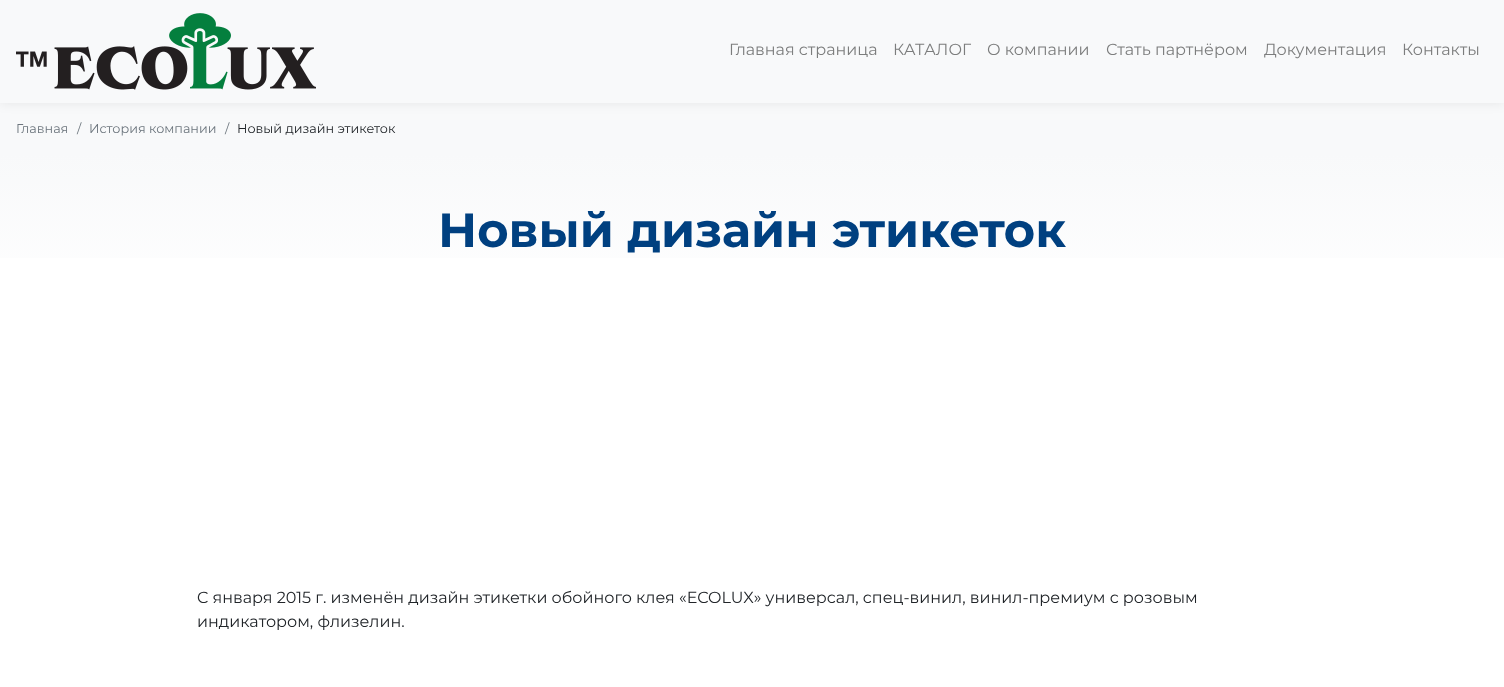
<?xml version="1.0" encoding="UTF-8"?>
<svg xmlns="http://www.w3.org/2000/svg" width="1504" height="687">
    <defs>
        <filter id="blur1" x="-50%" y="-200%" width="200%" height="500%"><feGaussianBlur stdDeviation="6"/></filter>
        <linearGradient id="g1" gradientUnits="userSpaceOnUse" x1="752" y1="316" x2="752" y2="154"><stop offset="0" stop-color="#FFFFFF"/><stop offset="1" stop-color="#F8F9FA"/></linearGradient>
    </defs>
    <rect width="100%" height="100%" fill="#FFFFFF"/>
    <rect x="0" y="103" width="1504" height="51" fill="#F8F9FA"/>
    <rect x="0" y="0" width="1504" height="103" fill="#000000" fill-opacity="0.08" filter="url(#blur1)"/>
    <rect x="0" y="0" width="1504" height="103" fill="#F8F9FA"/>
    <image x="16" y="13" width="300" height="77" href="img_01.png"/>
    <text x="729" y="55" font-family="Montserrat" font-size="16" fill="#7C7D7D">Главная страница</text>
    <text x="893" y="55" font-family="Montserrat" font-size="16" fill="#7C7D7D">КАТАЛОГ</text>
    <text x="987" y="55" font-family="Montserrat" font-size="16" fill="#7C7D7D">О компании</text>
    <text x="1106" y="55" font-family="Montserrat" font-size="16" fill="#7C7D7D">Стать партнёром</text>
    <text x="1264" y="55" font-family="Montserrat" font-size="16" fill="#7C7D7D">Документация</text>
    <text x="1402" y="55" font-family="Montserrat" font-size="16" fill="#7C7D7D">Контакты</text>
    <text x="16" y="133" font-family="Montserrat" font-size="12.75" fill="#6C757D">Главная</text>
    <text x="77" y="133" font-family="Montserrat" font-size="12.75" fill="#6C757D">/</text>
    <text x="89" y="133" font-family="Montserrat" font-size="12.75" fill="#6C757D">История компании</text>
    <text x="225" y="133" font-family="Montserrat" font-size="12.75" fill="#6C757D">/</text>
    <text x="237" y="133" font-family="Montserrat" font-size="12.75" fill="#212529">Новый дизайн этикеток</text>
    <rect x="0" y="154" width="1504" height="104" fill="url(#g1)"/>
    <text x="438" y="247" font-family="Montserrat" font-size="48" font-weight="700" fill="#004080">Новый дизайн этикеток</text>
    <text font-family="Montserrat" font-size="16" fill="#212529">
        <tspan x="197" y="603">C января 2015 г. изменён дизайн этикетки обойного клея «ECOLUX» универсал, спец-винил, винил-премиум с розовым</tspan>
        <tspan x="197" y="627">индикатором, флизелин.</tspan>
    </text>
</svg>
